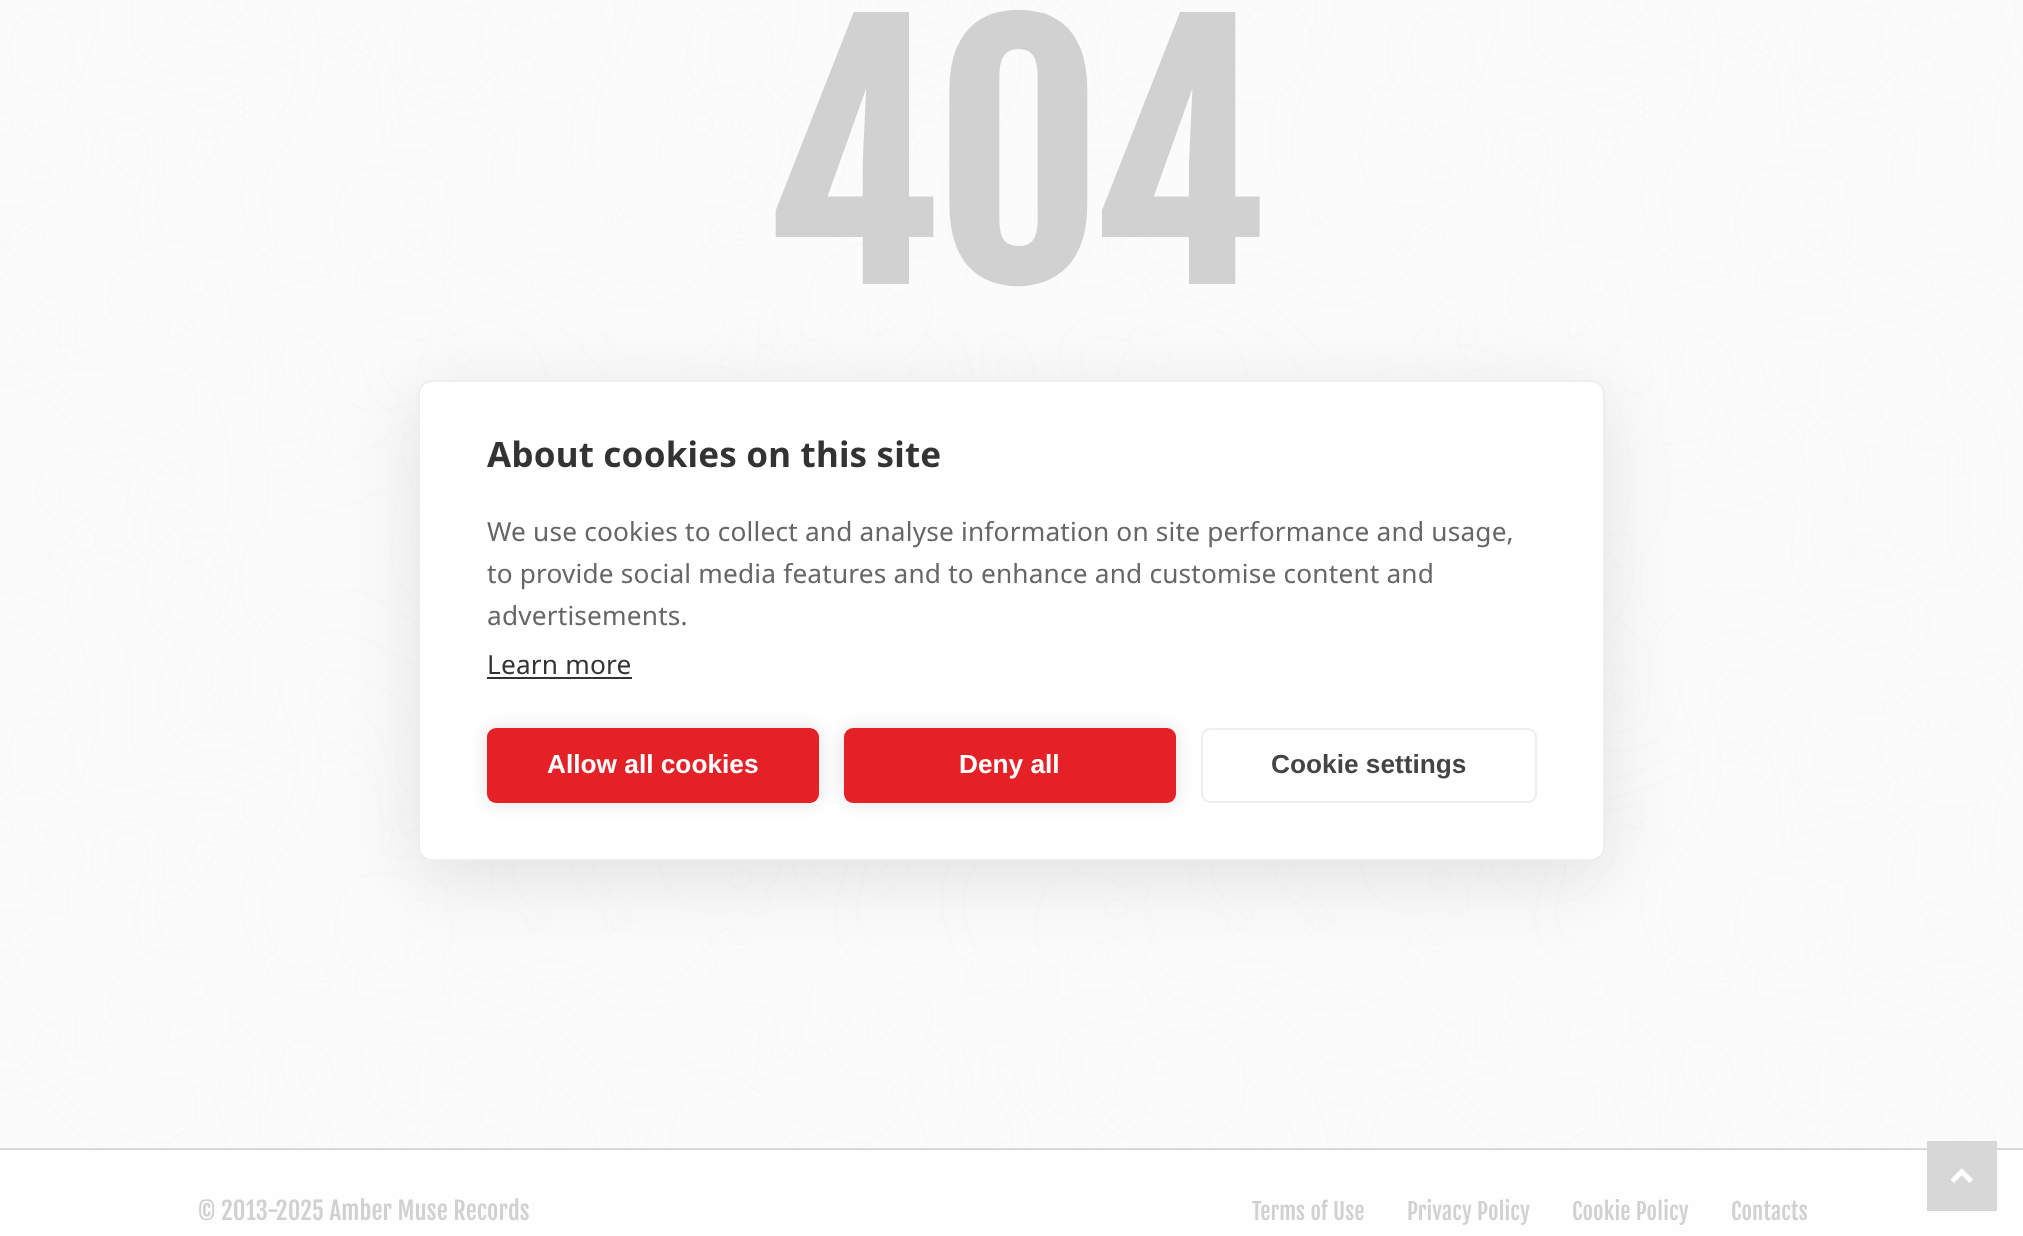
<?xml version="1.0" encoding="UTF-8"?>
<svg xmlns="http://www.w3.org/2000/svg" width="2023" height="1236">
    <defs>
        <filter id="blur1" x="-50%" y="-200%" width="200%" height="500%"><feGaussianBlur stdDeviation="35"/></filter>
        <filter id="blur2" x="-50%" y="-200%" width="200%" height="500%"><feGaussianBlur stdDeviation="9"/></filter>
    </defs>
    <rect width="100%" height="100%" fill="#FEFEFE"/>
    <rect x="0" y="1148" width="2023" height="2" fill="#D3D3D3"/>
    <image x="0" y="0" width="2023" height="1149" href="img_01.png"/>
    <text x="764" y="284" font-family="Fjalla One" font-size="315" font-weight="700" letter-spacing="0.18" fill="#D1D1D1">404</text>
    <text x="198" y="1220" font-family="Fjalla One" font-size="24.5" letter-spacing="0.18" fill="#D1D1D1">© 2013-2025 Amber Muse Records</text>
    <text x="1252" y="1220" font-family="Fjalla One" font-size="22.75" letter-spacing="0.18" fill="#D1D1D1">Terms of Use</text>
    <text x="1407" y="1220" font-family="Fjalla One" font-size="22.75" letter-spacing="0.18" fill="#D1D1D1">Privacy Policy</text>
    <text x="1572" y="1220" font-family="Fjalla One" font-size="22.75" letter-spacing="0.18" fill="#D1D1D1">Cookie Policy</text>
    <text x="1731" y="1220" font-family="Fjalla One" font-size="22.75" letter-spacing="0.18" fill="#D1D1D1">Contacts</text>
    <rect x="418" y="397" width="1187" height="482" rx="14" fill="#000000" fill-opacity="0.1" filter="url(#blur1)"/>
    <rect x="419" y="381" width="1185" height="479" rx="13" fill="#FFFFFF" stroke="#EEEEEE" stroke-width="2"/>
    <text x="487" y="467" font-family="Noto Sans" font-size="35" font-weight="700" letter-spacing="0.18" fill="#333333">About cookies on this site</text>
    <text font-family="Noto Sans" font-size="26.25" letter-spacing="0.18" fill="#666666">
        <tspan x="487" y="541">We use cookies to collect and analyse information on site performance and usage,</tspan>
        <tspan x="487" y="583">to provide social media features and to enhance and customise content and</tspan>
        <tspan x="487" y="625">advertisements.</tspan>
    </text>
    <text x="487" y="674" font-family="Noto Sans" font-size="26.25" letter-spacing="0.18" fill="#333333">Learn more</text>
    <rect x="487" y="677" width="145" height="2" fill="#333333"/>
    <rect x="487" y="728" width="332" height="75" rx="9" fill="#000000" fill-opacity="0.12" filter="url(#blur2)"/>
    <rect x="487" y="728" width="332" height="75" rx="9" fill="#E42127"/>
    <text x="547" y="773" font-family="Liberation Sans" font-size="26.25" font-weight="700" fill="#FFFFFF">Allow all cookies</text>
    <rect x="844" y="728" width="332" height="75" rx="9" fill="#000000" fill-opacity="0.12" filter="url(#blur2)"/>
    <rect x="844" y="728" width="332" height="75" rx="9" fill="#E42127"/>
    <text x="959" y="773" font-family="Liberation Sans" font-size="26.25" font-weight="700" fill="#FFFFFF">Deny all</text>
    <rect x="1202" y="729" width="334" height="73" rx="8" fill="none" stroke="#EEEEEE" stroke-width="2"/>
    <text x="1271" y="773" font-family="Liberation Sans" font-size="26.25" font-weight="700" fill="#444444">Cookie settings</text>
    <rect x="1927" y="1141" width="70" height="70" fill="#D7D7D7"/>
    <image x="1950" y="1168" width="23" height="15" href="img_02.png"/>
</svg>
